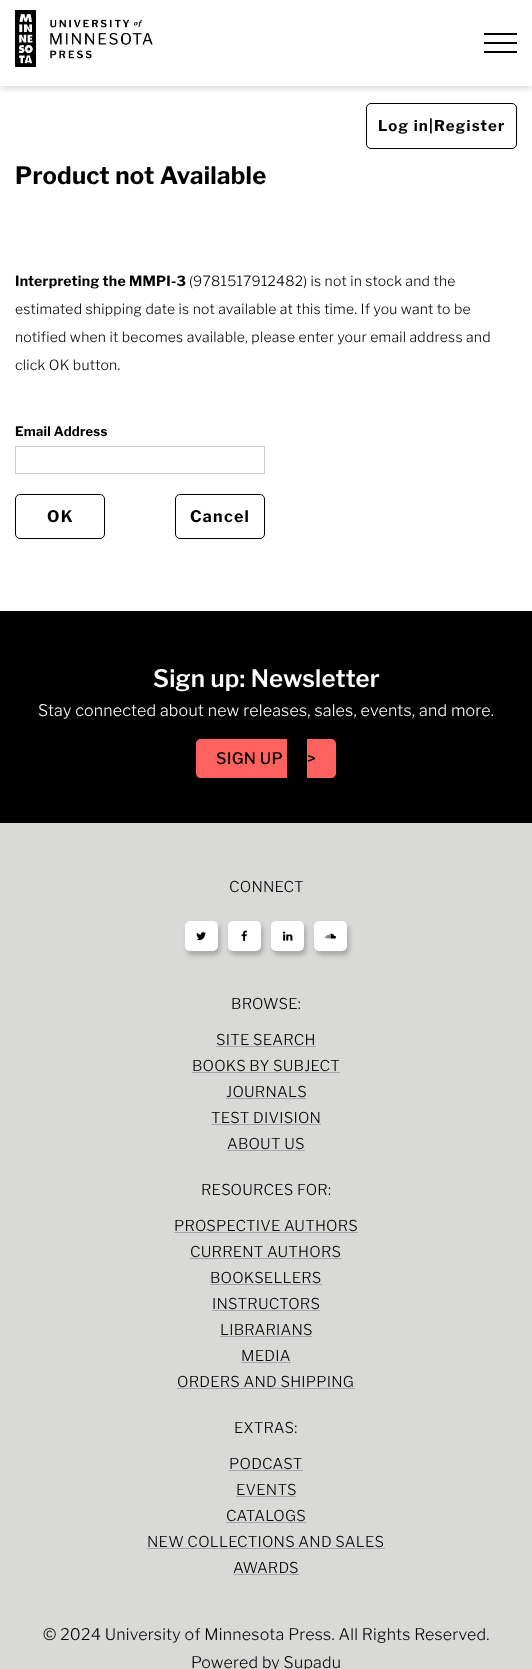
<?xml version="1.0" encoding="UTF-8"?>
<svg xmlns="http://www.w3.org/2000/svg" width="532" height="1669">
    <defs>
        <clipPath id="clip1"><rect x="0" y="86" width="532" height="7"/></clipPath>
        <filter id="blur1" x="-50%" y="-200%" width="200%" height="500%"><feGaussianBlur stdDeviation="5"/></filter>
        <filter id="blur2" x="-50%" y="-200%" width="200%" height="500%"><feGaussianBlur stdDeviation="2.5"/></filter>
    </defs>
    <rect width="100%" height="100%" fill="#FFFFFF"/>
    <g clip-path="url(#clip1)">
        <rect x="0" y="0" width="532" height="86" fill="#000000" fill-opacity="0.25" filter="url(#blur1)"/>
    </g>
    <image x="15" y="10" width="138" height="57" href="img_01.png"/>
    <rect x="484" y="42" width="33" height="2" fill="#000000"/>
    <rect x="484" y="33" width="33" height="2" fill="#000000"/>
    <rect x="484" y="51" width="33" height="2" fill="#000000"/>
    <rect x="366.5" y="103.5" width="150" height="45" rx="4.5" fill="none" stroke="#000000"/>
    <text x="378" y="131" font-family="Libre Franklin" font-size="15" font-weight="700" letter-spacing="1.25" fill="#000000">Log in|Register</text>
    <text x="15" y="184" font-family="Libre Franklin" font-size="24" font-weight="700" letter-spacing="0.23" fill="#000000">Product not Available</text>
    <text x="15" y="286" font-family="Libre Franklin" font-size="14" font-weight="700" letter-spacing="0.23" fill="#000000">Interpreting the MMPI-3</text>
    <text x="189" y="286" font-family="Libre Franklin" font-size="14" font-weight="300" letter-spacing="0.23" fill="#000000">(9781517912482) is not in stock and the</text>
    <text x="15" y="314" font-family="Libre Franklin" font-size="14" font-weight="300" letter-spacing="0.23" fill="#000000">estimated shipping date is not available at this time. If you want to be</text>
    <text x="15" y="342" font-family="Libre Franklin" font-size="14" font-weight="300" letter-spacing="0.23" fill="#000000">notified when it becomes available, please enter your email address and</text>
    <text x="15" y="370" font-family="Libre Franklin" font-size="14" font-weight="300" letter-spacing="0.23" fill="#000000">click OK button.</text>
    <text x="15" y="436" font-family="Libre Franklin" font-size="13" font-weight="700" letter-spacing="0.23" fill="#000000">Email Address</text>
    <rect x="15.5" y="446.5" width="249" height="27" fill="none" stroke="#CECECE"/>
    <rect x="15.5" y="494.5" width="89" height="44" rx="4.5" fill="none" stroke="#000000"/>
    <text x="47" y="522" font-family="Libre Franklin" font-size="16" font-weight="700" letter-spacing="1.25" fill="#000000">OK</text>
    <rect x="175.5" y="494.5" width="89" height="44" rx="4.5" fill="none" stroke="#000000"/>
    <text x="190" y="522" font-family="Libre Franklin" font-size="16" font-weight="700" letter-spacing="1.25" fill="#000000">Cancel</text>
    <rect x="0" y="611" width="532" height="212" fill="#000000"/>
    <text x="153" y="687" font-family="Libre Franklin" font-size="24" font-weight="600" letter-spacing="0.23" fill="#FFFFFF">Sign up: Newsletter</text>
    <text x="38" y="716" font-family="Libre Franklin" font-size="16" font-weight="300" letter-spacing="0.23" fill="#FFFFFF">Stay connected about new releases, sales, events, and more.</text>
    <path d="M 201 739 H 287 V 778 H 201 C 198 778 196 776 196 773 V 744 C 196 741 198 739 201 739 Z" fill="#FF615E"/>
    <text x="216" y="764" font-family="Libre Franklin" font-size="16" font-weight="500" letter-spacing="0.23" fill="#000000">SIGN UP</text>
    <path d="M 307 739 H 331 C 334 739 336 741 336 744 V 773 C 336 776 334 778 331 778 H 307 Z" fill="#FF615E"/>
    <text x="307" y="764" font-family="Libre Franklin" font-size="16" font-weight="500" letter-spacing="0.23" fill="#000000">&gt;</text>
    <rect x="0" y="823" width="532" height="846" fill="#D9D9D8"/>
    <text x="229" y="892" font-family="Libre Franklin" font-size="15" font-weight="300" letter-spacing="0.23" fill="#000000">CONNECT</text>
    <rect x="187" y="925" width="33" height="30" rx="5" fill="#000000" fill-opacity="0.23" filter="url(#blur2)"/>
    <rect x="185" y="921" width="33" height="30" rx="5" fill="#FFFFFF"/>
    <image x="196" y="932" width="10" height="9" href="img_02.png"/>
    <rect x="230" y="925" width="33" height="30" rx="5" fill="#000000" fill-opacity="0.23" filter="url(#blur2)"/>
    <rect x="228" y="921" width="33" height="30" rx="5" fill="#FFFFFF"/>
    <image x="241" y="930" width="6" height="11" href="img_03.png"/>
    <rect x="273" y="925" width="33" height="30" rx="5" fill="#000000" fill-opacity="0.23" filter="url(#blur2)"/>
    <rect x="271" y="921" width="33" height="30" rx="5" fill="#FFFFFF"/>
    <image x="283" y="931" width="10" height="10" href="img_04.png"/>
    <rect x="316" y="925" width="33" height="30" rx="5" fill="#000000" fill-opacity="0.23" filter="url(#blur2)"/>
    <rect x="314" y="921" width="33" height="30" rx="5" fill="#FFFFFF"/>
    <image x="325" y="933" width="11" height="6" href="img_05.png"/>
    <text x="231" y="1009" font-family="Libre Franklin" font-size="15" font-weight="300" letter-spacing="0.23" fill="#000000">BROWSE:</text>
    <text x="216" y="1045" font-family="Libre Franklin" font-size="15" font-weight="300" letter-spacing="0.23" fill="#000000">SITE SEARCH</text>
    <rect x="216" y="1046" width="100" height="1" fill="#A6A7A8"/>
    <text x="192" y="1071" font-family="Libre Franklin" font-size="15" font-weight="300" letter-spacing="0.23" fill="#000000">BOOKS BY SUBJECT</text>
    <rect x="192" y="1072" width="148" height="1" fill="#A6A7A8"/>
    <text x="226" y="1097" font-family="Libre Franklin" font-size="15" font-weight="300" letter-spacing="0.23" fill="#000000">JOURNALS</text>
    <rect x="226" y="1098" width="80" height="1" fill="#A6A7A8"/>
    <text x="211" y="1123" font-family="Libre Franklin" font-size="15" font-weight="300" letter-spacing="0.23" fill="#000000">TEST DIVISION</text>
    <rect x="211" y="1124" width="110" height="1" fill="#A6A7A8"/>
    <text x="227" y="1149" font-family="Libre Franklin" font-size="15" font-weight="300" letter-spacing="0.23" fill="#000000">ABOUT US</text>
    <rect x="227" y="1150" width="78" height="1" fill="#A6A7A8"/>
    <text x="201" y="1195" font-family="Libre Franklin" font-size="15" font-weight="300" letter-spacing="0.23" fill="#000000">RESOURCES FOR:</text>
    <text x="174" y="1231" font-family="Libre Franklin" font-size="15" font-weight="300" letter-spacing="0.23" fill="#000000">PROSPECTIVE AUTHORS</text>
    <rect x="174" y="1232" width="184" height="1" fill="#A6A7A8"/>
    <text x="190" y="1257" font-family="Libre Franklin" font-size="15" font-weight="300" letter-spacing="0.23" fill="#000000">CURRENT AUTHORS</text>
    <rect x="190" y="1258" width="152" height="1" fill="#A6A7A8"/>
    <text x="210" y="1283" font-family="Libre Franklin" font-size="15" font-weight="300" letter-spacing="0.23" fill="#000000">BOOKSELLERS</text>
    <rect x="210" y="1284" width="112" height="1" fill="#A6A7A8"/>
    <text x="212" y="1309" font-family="Libre Franklin" font-size="15" font-weight="300" letter-spacing="0.23" fill="#000000">INSTRUCTORS</text>
    <rect x="212" y="1310" width="108" height="1" fill="#A6A7A8"/>
    <text x="220" y="1335" font-family="Libre Franklin" font-size="15" font-weight="300" letter-spacing="0.23" fill="#000000">LIBRARIANS</text>
    <rect x="220" y="1336" width="92" height="1" fill="#A6A7A8"/>
    <text x="241" y="1361" font-family="Libre Franklin" font-size="15" font-weight="300" letter-spacing="0.23" fill="#000000">MEDIA</text>
    <rect x="241" y="1362" width="50" height="1" fill="#A6A7A8"/>
    <text x="177" y="1387" font-family="Libre Franklin" font-size="15" font-weight="300" letter-spacing="0.23" fill="#000000">ORDERS AND SHIPPING</text>
    <rect x="177" y="1388" width="178" height="1" fill="#A6A7A8"/>
    <text x="234" y="1433" font-family="Libre Franklin" font-size="15" font-weight="300" letter-spacing="0.23" fill="#000000">EXTRAS:</text>
    <text x="229" y="1469" font-family="Libre Franklin" font-size="15" font-weight="300" letter-spacing="0.23" fill="#000000">PODCAST</text>
    <rect x="229" y="1470" width="74" height="1" fill="#A6A7A8"/>
    <text x="236" y="1495" font-family="Libre Franklin" font-size="15" font-weight="300" letter-spacing="0.23" fill="#000000">EVENTS</text>
    <rect x="236" y="1496" width="60" height="1" fill="#A6A7A8"/>
    <text x="226" y="1521" font-family="Libre Franklin" font-size="15" font-weight="300" letter-spacing="0.23" fill="#000000">CATALOGS</text>
    <rect x="226" y="1522" width="80" height="1" fill="#A6A7A8"/>
    <text x="147" y="1547" font-family="Libre Franklin" font-size="15" font-weight="300" letter-spacing="0.23" fill="#000000">NEW COLLECTIONS AND SALES</text>
    <rect x="147" y="1548" width="238" height="1" fill="#A6A7A8"/>
    <text x="233" y="1573" font-family="Libre Franklin" font-size="15" font-weight="300" letter-spacing="0.23" fill="#000000">AWARDS</text>
    <rect x="233" y="1574" width="66" height="1" fill="#A6A7A8"/>
    <text x="43" y="1640" font-family="Libre Franklin" font-size="16" font-weight="300" letter-spacing="0.23" fill="#000000">© 2024 University of Minnesota Press. All Rights Reserved.</text>
    <text x="191" y="1668" font-family="Libre Franklin" font-size="16" font-weight="300" letter-spacing="0.23" fill="#000000">Powered by Supadu</text>
</svg>
